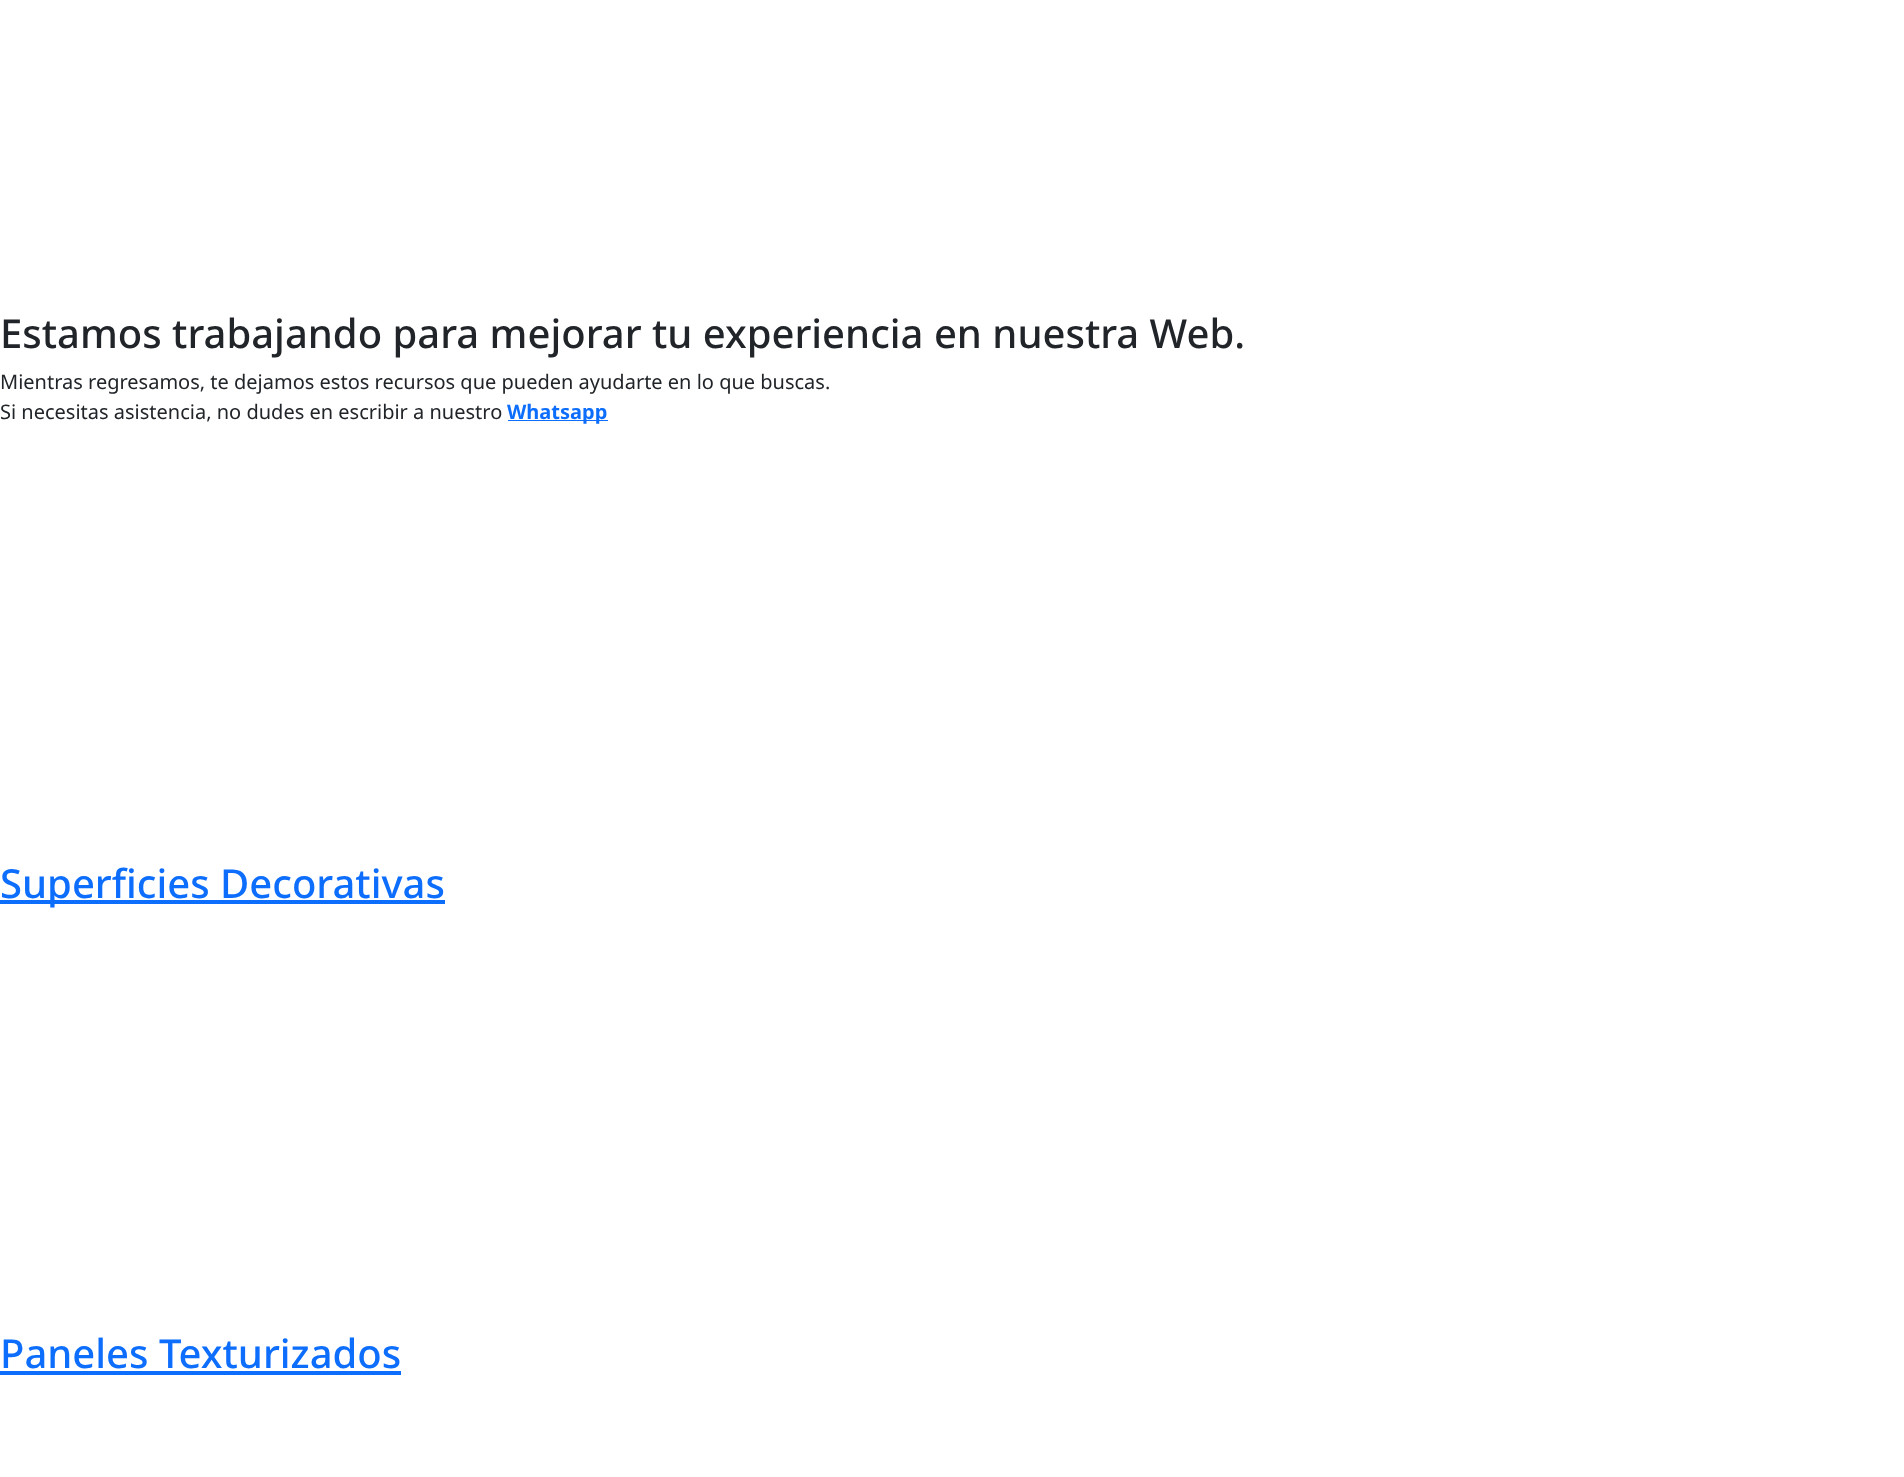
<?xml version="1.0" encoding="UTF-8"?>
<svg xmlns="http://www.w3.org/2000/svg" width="1904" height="1477">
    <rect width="100%" height="100%" fill="#FFFFFF"/>
    <text x="0" y="348" font-family="Noto Sans" font-size="40" font-weight="500" fill="#212529">Estamos trabajando para mejorar tu experiencia en nuestra Web.</text>
    <text font-family="Noto Sans" font-size="20" fill="#212529">
        <tspan x="0" y="389">Mientras regresamos, te dejamos estos recursos que pueden ayudarte en lo que buscas.</tspan>
        <tspan x="0" y="419">Si necesitas asistencia, no dudes en escribir a nuestro</tspan>
    </text>
    <rect x="508" y="420" width="100" height="1" fill="#0D6EFD"/>
    <text x="507" y="419" font-family="Noto Sans" font-size="20" font-weight="700" fill="#0D6EFD">Whatsapp</text>
    <rect x="0" y="900" width="445" height="4" fill="#0D6EFD"/>
    <text x="0" y="898" font-family="Noto Sans" font-size="40" font-weight="500" fill="#0D6EFD">Superficies Decorativas</text>
    <text x="0" y="1368" font-family="Noto Sans" font-size="40" font-weight="500" fill="#0D6EFD">Paneles Texturizados</text>
    <rect x="0" y="1371" width="401" height="4" fill="#0D6EFD"/>
</svg>
